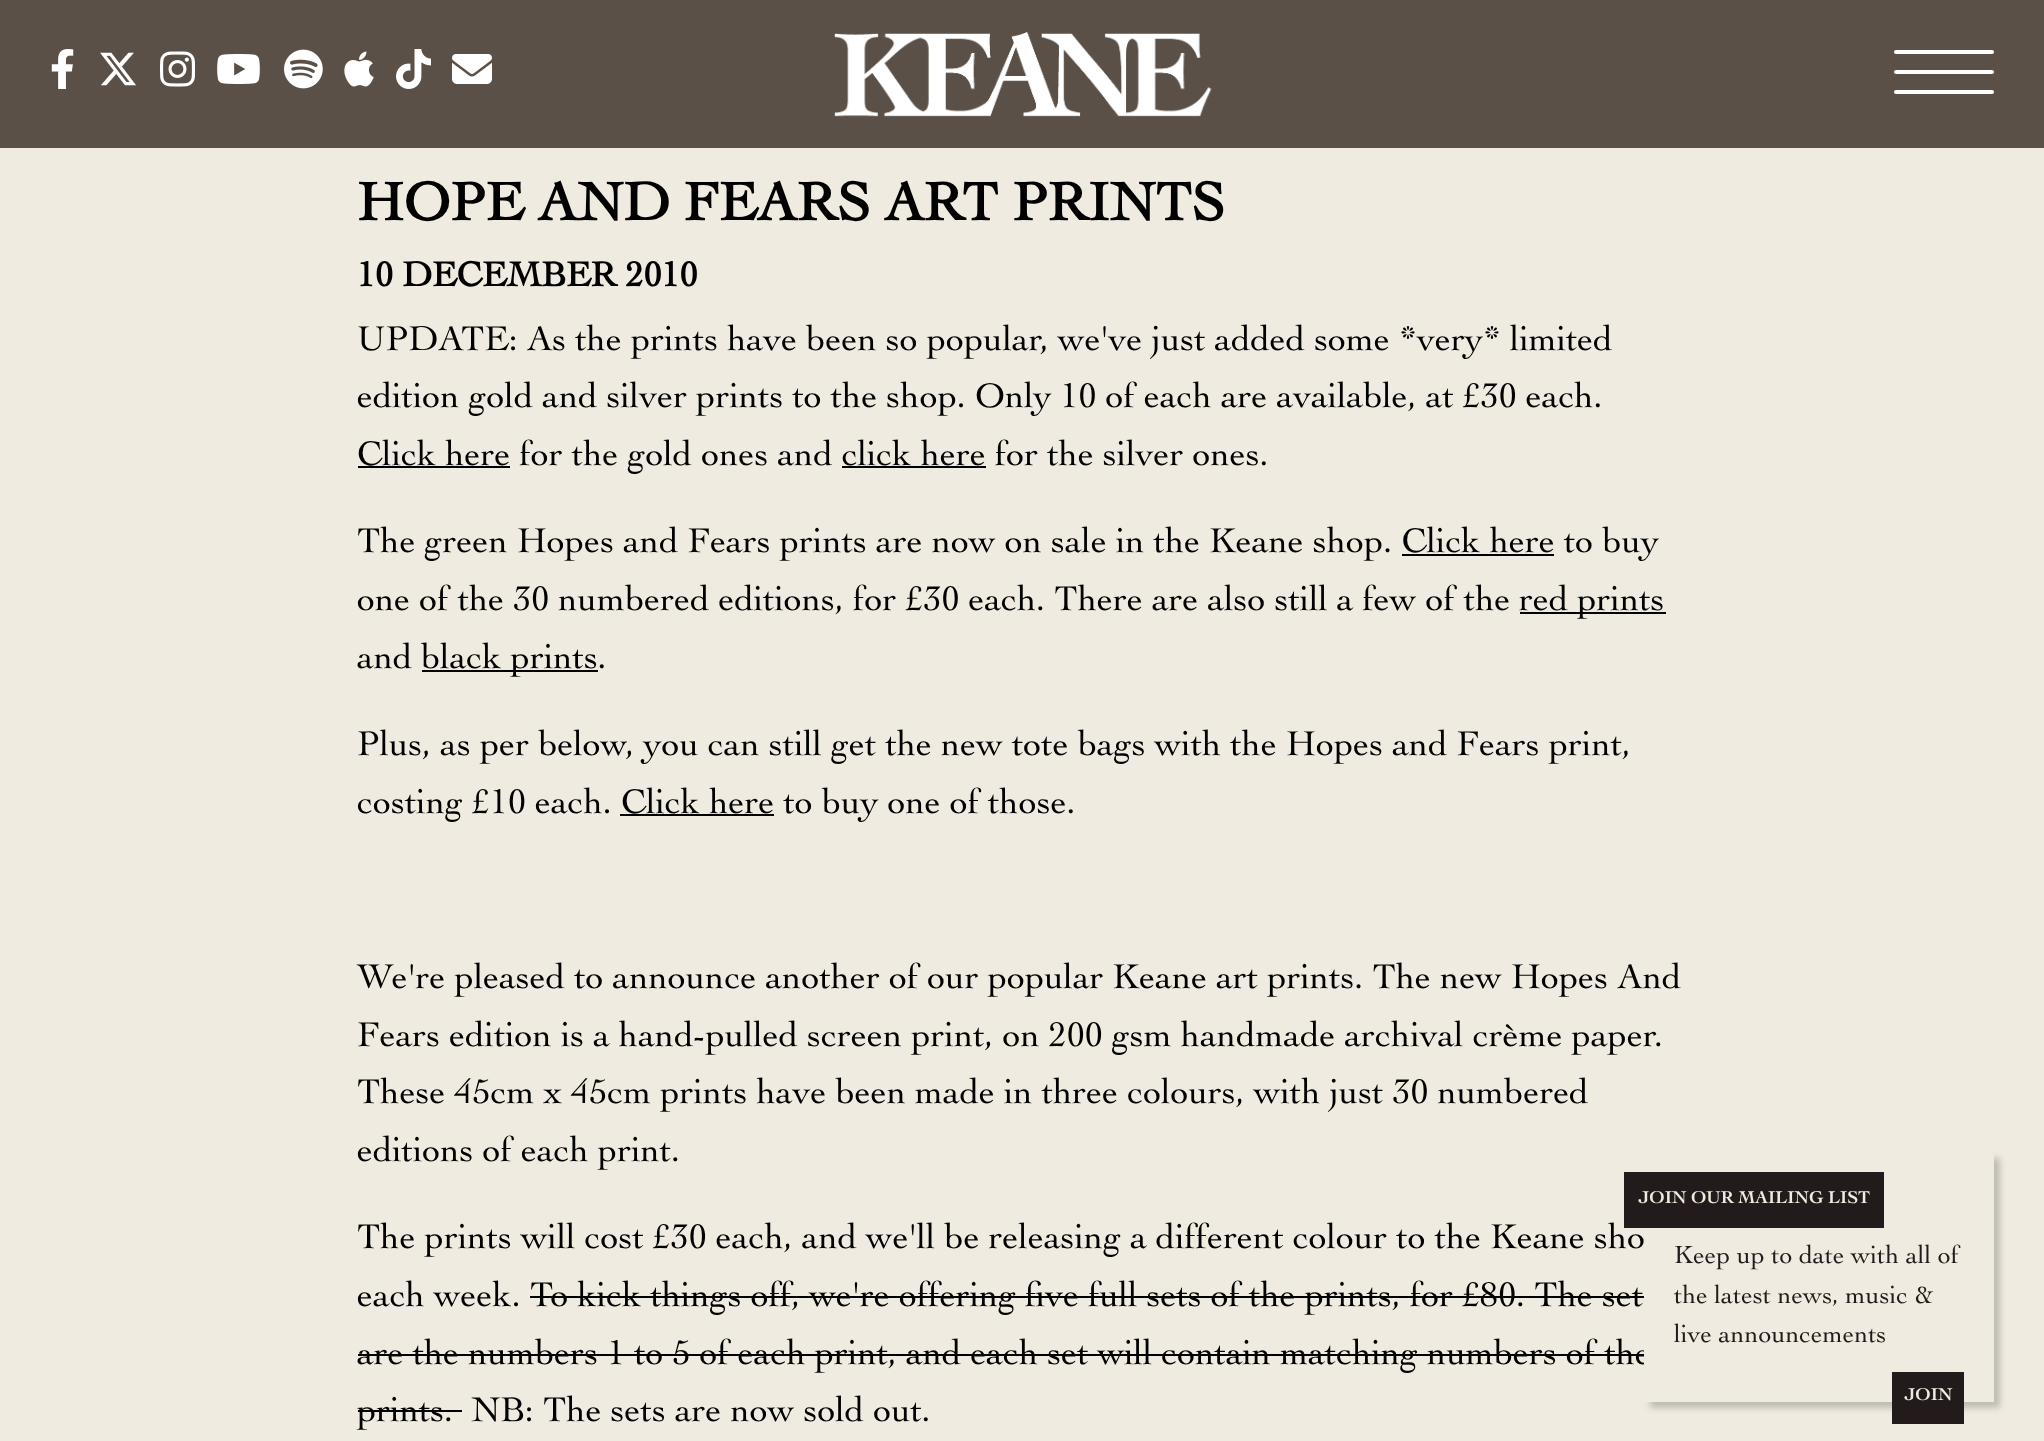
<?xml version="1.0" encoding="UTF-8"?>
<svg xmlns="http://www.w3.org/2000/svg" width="2044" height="1441">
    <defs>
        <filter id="blur1" x="-50%" y="-200%" width="200%" height="500%"><feGaussianBlur stdDeviation="3"/></filter>
    </defs>
    <rect width="100%" height="100%" fill="#EFEBE0"/>
    <rect x="0" y="0" width="2044" height="148" fill="#5A5048"/>
    <rect x="1894" y="50" width="100" height="4" rx="2" fill="#FFFFFF"/>
    <rect x="1894" y="70" width="100" height="4" rx="2" fill="#FFFFFF"/>
    <rect x="1894" y="90" width="100" height="4" rx="2" fill="#FFFFFF"/>
    <image x="51" y="49" width="23" height="40" href="img_01.png"/>
    <image x="100" y="52" width="36" height="34" href="img_02.png"/>
    <image x="160" y="51" width="35" height="36" href="img_03.png"/>
    <image x="217" y="54" width="43" height="30" href="img_04.png"/>
    <image x="284" y="49" width="39" height="40" href="img_05.png"/>
    <image x="344" y="51" width="30" height="36" href="img_06.png"/>
    <image x="396" y="49" width="35" height="40" href="img_07.png"/>
    <image x="452" y="54" width="40" height="30" href="img_08.png"/>
    <image x="834" y="32" width="378" height="85" href="img_09.png"/>
    <text x="357" y="220" font-family="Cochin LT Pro" font-size="56" font-weight="700" fill="#000000">HOPE AND FEARS ART PRINTS</text>
    <text x="357" y="286" font-family="Cochin LT Pro" font-size="36" font-weight="700" fill="#000000">10 DECEMBER 2010</text>
    <text font-family="Cochin LT Pro" font-size="36" fill="#000000">
        <tspan x="357" y="350">UPDATE: As the prints have been so popular, we've just added some *very* limited</tspan>
        <tspan x="357" y="407">edition gold and silver prints to the shop. Only 10 of each are available, at £30 each.</tspan>
    </text>
    <rect x="358" y="466" width="152" height="2" fill="#000000"/>
    <text x="357" y="465" font-family="Cochin LT Pro" font-size="36" fill="#000000">Click here for the gold ones and click here for the silver ones.</text>
    <rect x="842" y="466" width="144" height="2" fill="#000000"/>
    <text x="357" y="552" font-family="Cochin LT Pro" font-size="36" fill="#000000">The green Hopes and Fears prints are now on sale in the Keane shop. Click here to buy</text>
    <rect x="1402" y="554" width="152" height="2" fill="#000000"/>
    <text x="357" y="610" font-family="Cochin LT Pro" font-size="36" fill="#000000">one of the 30 numbered editions, for £30 each. There are also still a few of the</text>
    <rect x="1520" y="612" width="146" height="2" fill="#000000"/>
    <text x="1519" y="610" font-family="Cochin LT Pro" font-size="36" fill="#000000">red prints</text>
    <text x="357" y="668" font-family="Cochin LT Pro" font-size="36" fill="#000000">and</text>
    <rect x="422" y="670" width="176" height="2" fill="#000000"/>
    <text x="421" y="668" font-family="Cochin LT Pro" font-size="36" fill="#000000">black prints.</text>
    <text font-family="Cochin LT Pro" font-size="36" fill="#000000">
        <tspan x="357" y="755">Plus, as per below, you can still get the new tote bags with the Hopes and Fears print,</tspan>
        <tspan x="357" y="813">costing £10 each. Click here to buy one of those.</tspan>
    </text>
    <rect x="620" y="814" width="154" height="2" fill="#000000"/>
    <text font-family="Cochin LT Pro" font-size="36" fill="#000000">
        <tspan x="357" y="988">We're pleased to announce another of our popular Keane art prints. The new Hopes And</tspan>
        <tspan x="357" y="1046">Fears edition is a hand-pulled screen print, on 200 gsm handmade archival crème paper.</tspan>
        <tspan x="357" y="1103">These 45cm x 45cm prints have been made in three colours, with just 30 numbered</tspan>
        <tspan x="357" y="1161">editions of each print.</tspan>
    </text>
    <text font-family="Cochin LT Pro" font-size="36" fill="#000000">
        <tspan x="357" y="1248">The prints will cost £30 each, and we'll be releasing a different colour to the Keane sho</tspan>
        <tspan x="357" y="1306">each week. To kick things off, we're offering five full sets of the prints, for £80. The set</tspan>
        <tspan x="357" y="1364">are the numbers 1 to 5 of each print, and each set will contain matching numbers of the</tspan>
    </text>
    <rect x="530" y="1296" width="1114" height="2" fill="#000000"/>
    <rect x="358" y="1354" width="1294" height="2" fill="#000000"/>
    <text x="357" y="1421" font-family="Cochin LT Pro" font-size="36" fill="#000000">prints.</text>
    <rect x="358" y="1410" width="104" height="2" fill="#000000"/>
    <text x="471" y="1421" font-family="Cochin LT Pro" font-size="36" fill="#000000">NB: The sets are now sold out.</text>
    <rect x="1650" y="1158" width="350" height="250" fill="#000000" fill-opacity="0.2" filter="url(#blur1)"/>
    <rect x="1644" y="1153" width="350" height="249" fill="#EFEBE0"/>
    <rect x="1624" y="1172" width="260" height="56" fill="#231B1B"/>
    <text x="1638" y="1203" font-family="'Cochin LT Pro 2'" font-size="18" font-weight="700" fill="#EFEBE0">JOIN OUR MAILING LIST</text>
    <text font-family="Cochin LT Pro" font-size="26" fill="#231B1B">
        <tspan x="1674" y="1263">Keep up to date with all of</tspan>
        <tspan x="1674" y="1303">the latest news, music &amp;</tspan>
        <tspan x="1674" y="1342">live announcements</tspan>
    </text>
    <rect x="1892" y="1372" width="72" height="52" fill="#231B1B"/>
    <text x="1904" y="1400" font-family="'Cochin LT Pro 2'" font-size="18" font-weight="700" fill="#EFEBE0">JOIN</text>
</svg>
